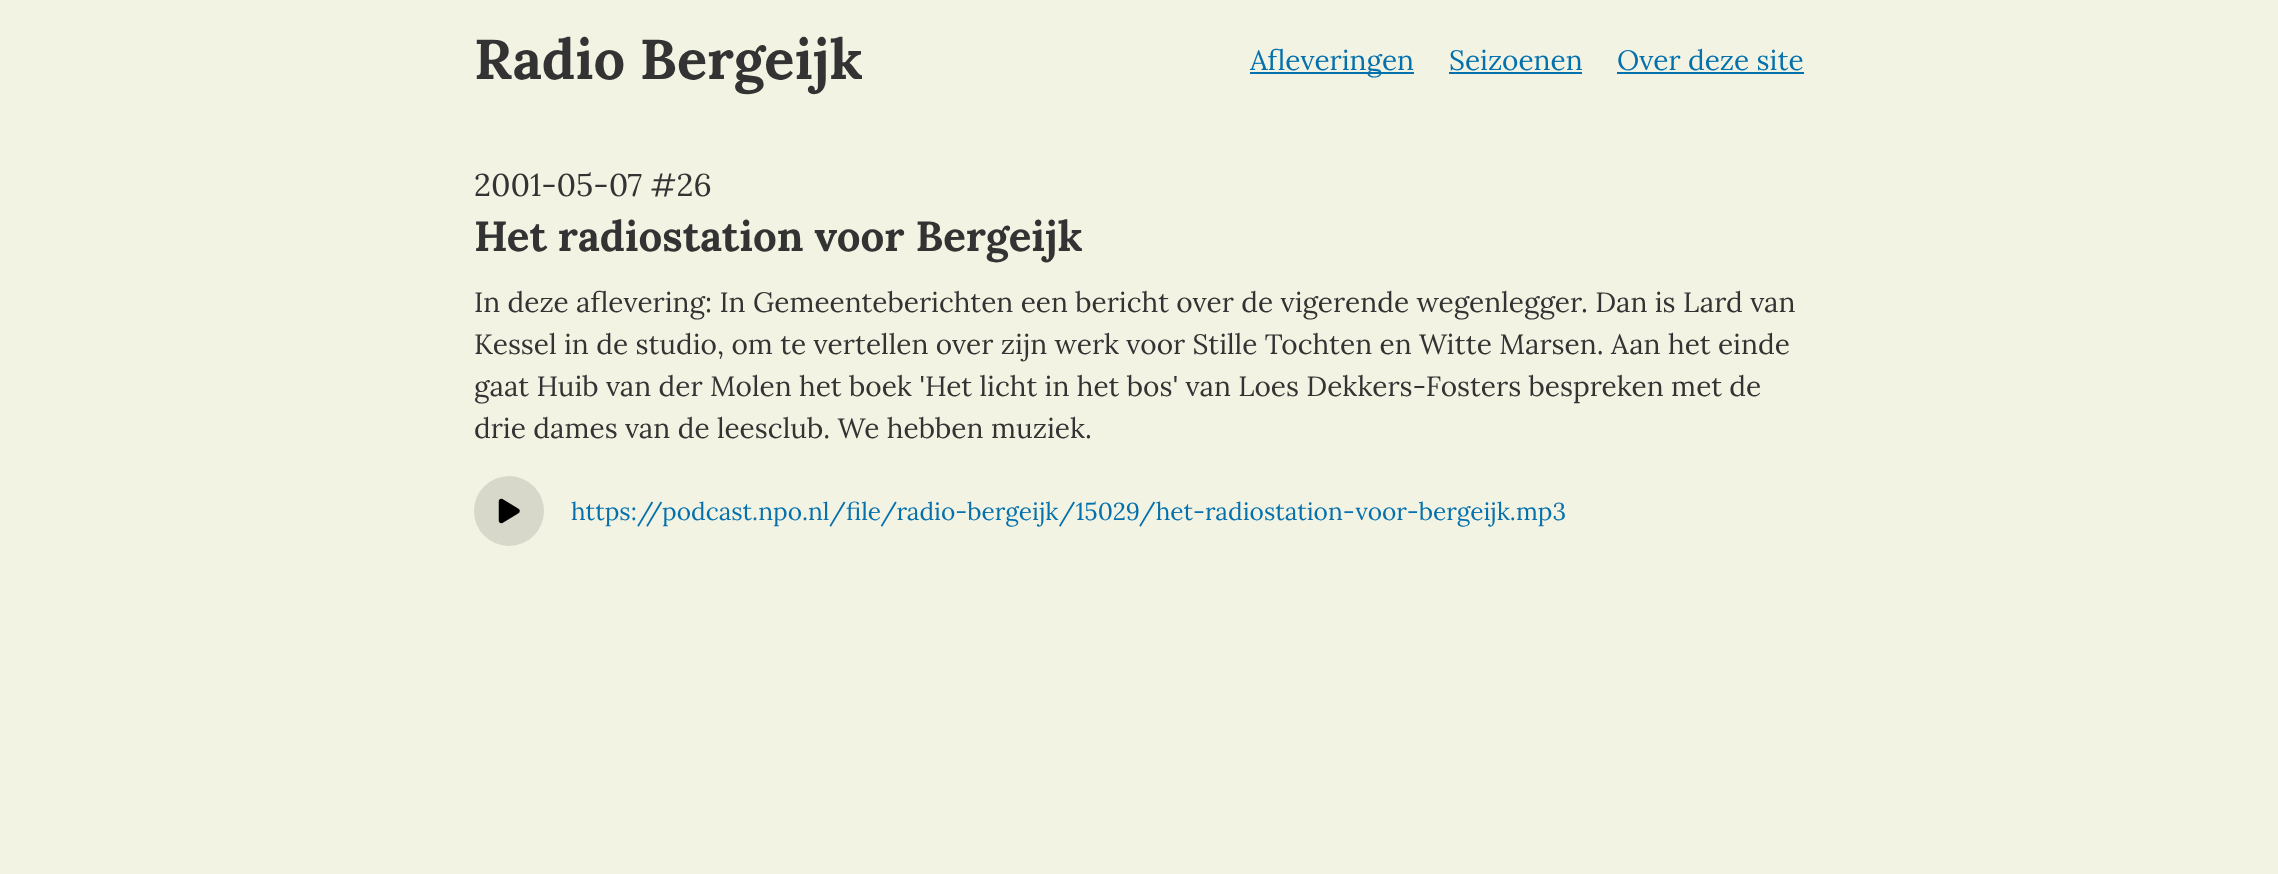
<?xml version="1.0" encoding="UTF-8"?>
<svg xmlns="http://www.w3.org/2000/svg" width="2278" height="874">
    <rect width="100%" height="100%" fill="#F3F3E4"/>
    <text x="474" y="79" font-family="Lora" font-size="56" font-weight="700" fill="#333333">Radio Bergeijk</text>
    <rect x="1250" y="72" width="164" height="2" fill="#0571AC"/>
    <text x="1250" y="70" font-family="Lora" font-size="28" fill="#0571AC">Afleveringen</text>
    <text x="1449" y="70" font-family="Lora" font-size="28" fill="#0571AC">Seizoenen</text>
    <rect x="1449" y="72" width="133" height="2" fill="#0571AC"/>
    <text x="1617" y="70" font-family="Lora" font-size="28" fill="#0571AC">Over deze site</text>
    <rect x="1617" y="72" width="187" height="2" fill="#0571AC"/>
    <text x="474" y="196" font-family="Lora" font-size="31.5" fill="#333333">2001-05-07 #26</text>
    <text x="474" y="251" font-family="Lora" font-size="42" font-weight="700" fill="#333333">Het radiostation voor Bergeijk</text>
    <text font-family="Lora" font-size="28" fill="#333333">
        <tspan x="474" y="312">In deze aflevering: In Gemeenteberichten een bericht over de vigerende wegenlegger. Dan is Lard van</tspan>
        <tspan x="474" y="354">Kessel in de studio, om te vertellen over zijn werk voor Stille Tochten en Witte Marsen. Aan het einde</tspan>
        <tspan x="474" y="396">gaat Huib van der Molen het boek 'Het licht in het bos' van Loes Dekkers-Fosters bespreken met de</tspan>
        <tspan x="474" y="438">drie dames van de leesclub. We hebben muziek.</tspan>
    </text>
    <circle cx="509" cy="511" r="35" fill="#D8D8CA"/>
    <image x="498" y="498" width="22" height="26" href="img_01.png"/>
    <text x="571" y="520" font-family="Lora" font-size="24.5" fill="#0571AC">https://podcast.npo.nl/file/radio-bergeijk/15029/het-radiostation-voor-bergeijk.mp3</text>
</svg>
